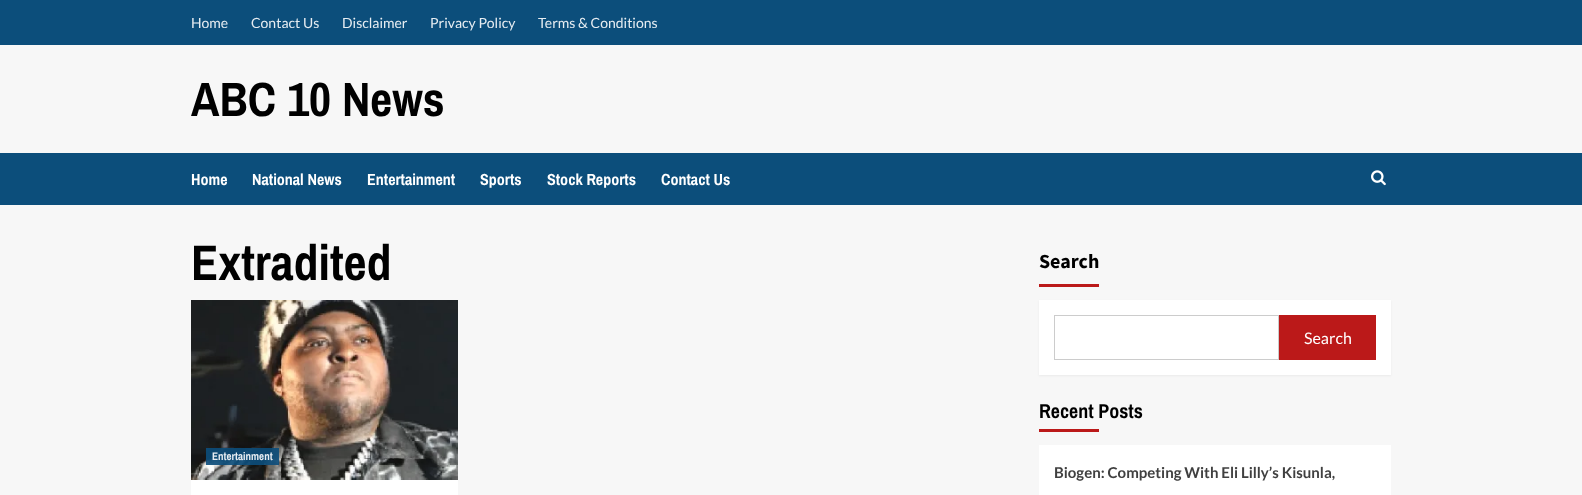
<?xml version="1.0" encoding="UTF-8"?>
<svg xmlns="http://www.w3.org/2000/svg" width="1582" height="495">
    <defs>
        <filter id="blur1" x="-50%" y="-200%" width="200%" height="500%"><feGaussianBlur stdDeviation="1"/></filter>
    </defs>
    <rect width="100%" height="100%" fill="#F7F7F7"/>
    <rect x="0" y="0" width="1582" height="45" fill="#0C4E7B"/>
    <text x="191" y="28" font-family="Lato" font-size="14" fill="#E7EDF2">Home</text>
    <text x="251" y="28" font-family="Lato" font-size="14" fill="#E7EDF2">Contact Us</text>
    <text x="342" y="28" font-family="Lato" font-size="14" fill="#E7EDF2">Disclaimer</text>
    <text x="430" y="28" font-family="Lato" font-size="14" fill="#E7EDF2">Privacy Policy</text>
    <text x="538" y="28" font-family="Lato" font-size="14" fill="#E7EDF2">Terms &amp; Conditions</text>
    <text x="191" y="116" font-family="Archivo Narrow" font-size="48" font-weight="700" fill="#000000">ABC 10 News</text>
    <rect x="0" y="153" width="1582" height="52" fill="#0C4E7B"/>
    <text x="191" y="185" font-family="Archivo Narrow" font-size="16" font-weight="700" fill="#FFFFFF">Home</text>
    <text x="252" y="185" font-family="Archivo Narrow" font-size="16" font-weight="700" fill="#FFFFFF">National News</text>
    <text x="367" y="185" font-family="Archivo Narrow" font-size="16" font-weight="700" fill="#FFFFFF">Entertainment</text>
    <text x="480" y="185" font-family="Archivo Narrow" font-size="16" font-weight="700" fill="#FFFFFF">Sports</text>
    <text x="547" y="185" font-family="Archivo Narrow" font-size="16" font-weight="700" fill="#FFFFFF">Stock Reports</text>
    <text x="661" y="185" font-family="Archivo Narrow" font-size="16" font-weight="700" fill="#FFFFFF">Contact Us</text>
    <image x="1371" y="170" width="15" height="16" href="img_01.png"/>
    <text x="191" y="280" font-family="Archivo Narrow" font-size="50" font-weight="700" fill="#000000">Extradited</text>
    <rect x="191" y="480" width="267" height="15" fill="#FFFFFF"/>
    <image x="191" y="300" width="267" height="180" href="img_02.png"/>
    <rect x="206" y="448" width="73" height="17" fill="#0C4E7B" fill-opacity="0.9"/>
    <text x="212" y="460" font-family="Archivo Narrow" font-size="11" font-weight="700" fill="#E7EDF2">Entertainment</text>
    <text x="1039" y="268" font-family="Source Sans Pro" font-size="20" font-weight="700" fill="#000000">Search</text>
    <rect x="1039" y="284" width="60" height="3" fill="#BB1919"/>
    <rect x="1039" y="301" width="352" height="75" fill="#000000" fill-opacity="0.05" filter="url(#blur1)"/>
    <rect x="1039" y="300" width="352" height="75" fill="#FFFFFF"/>
    <rect x="1054.5" y="315.5" width="224" height="44" fill="none" stroke="#CCCCCC"/>
    <rect x="1279" y="315" width="97" height="45" fill="#BB1919"/>
    <text x="1304" y="344" font-family="Lato" font-size="16" fill="#FFFFFF">Search</text>
    <text x="1039" y="418" font-family="Archivo Narrow" font-size="20" font-weight="700" fill="#000000">Recent Posts</text>
    <rect x="1039" y="429" width="60" height="3" fill="#BB1919"/>
    <rect x="1039" y="445" width="352" height="50" fill="#FFFFFF"/>
    <text x="1054" y="478" font-family="Lato" font-size="15" font-weight="700" fill="#404040">Biogen: Competing With Eli Lilly’s Kisunla,</text>
</svg>
